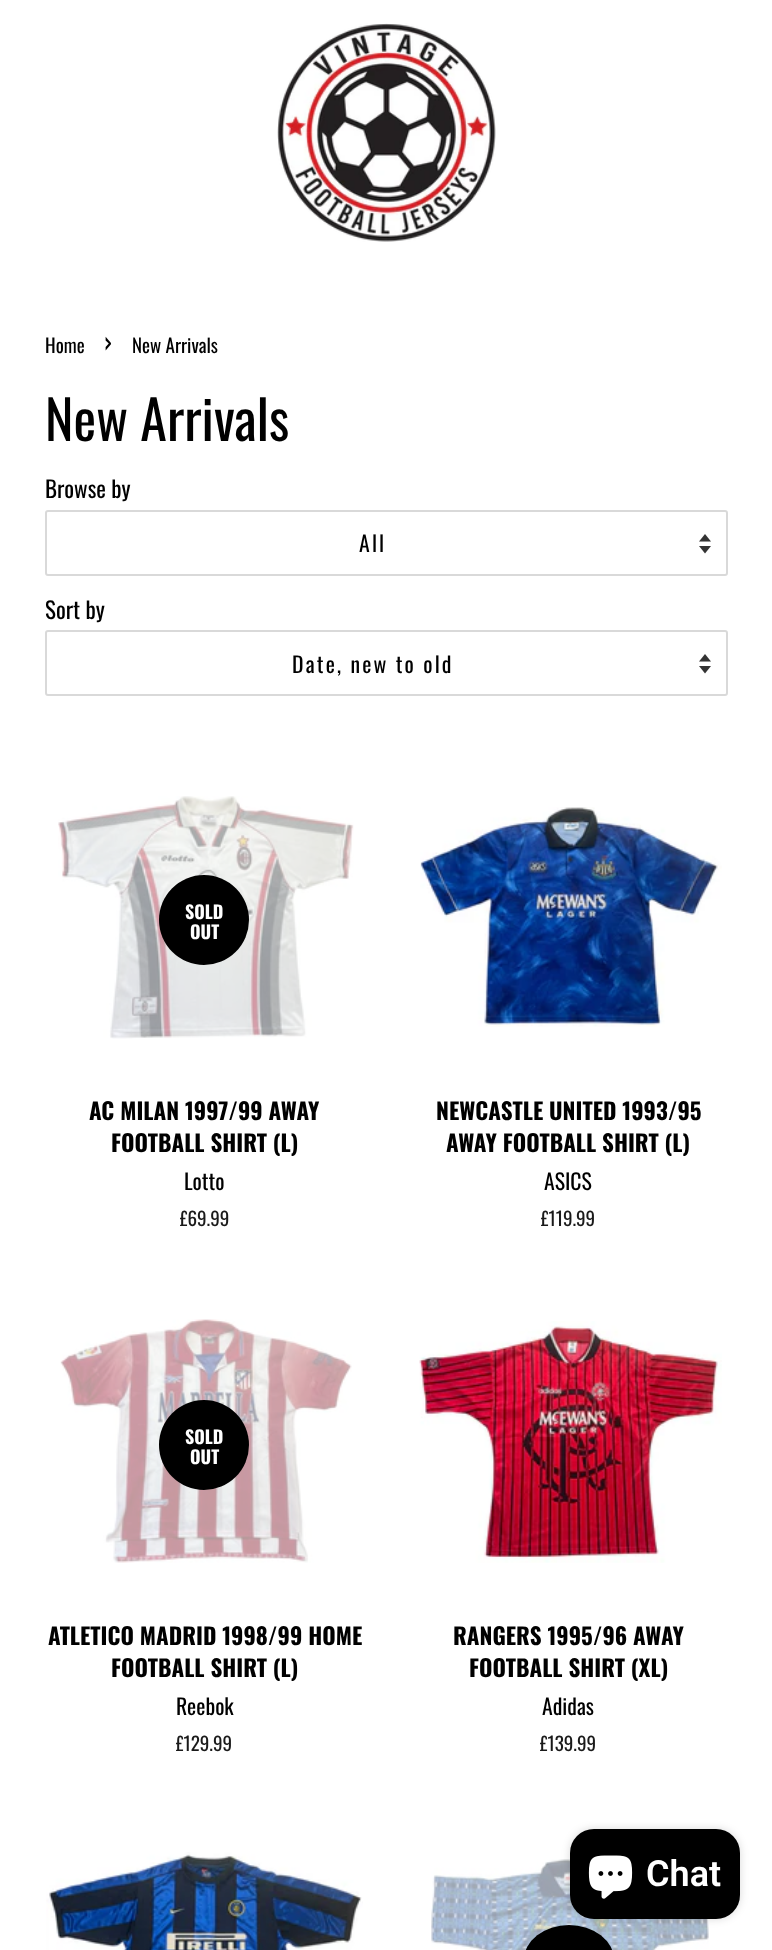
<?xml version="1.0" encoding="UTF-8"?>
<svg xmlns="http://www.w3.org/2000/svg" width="772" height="1950">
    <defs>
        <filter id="blur1" x="-50%" y="-200%" width="200%" height="500%"><feGaussianBlur stdDeviation="4"/></filter>
    </defs>
    <rect width="100%" height="100%" fill="#FFFFFF"/>
    <image x="277" y="23" width="219" height="219" href="img_01.png"/>
    <text x="45" y="353" font-family="Oswald" font-size="19" fill="#000000">Home</text>
    <text x="104" y="353" font-family="Oswald" font-size="27" fill="#000000">›</text>
    <text x="132" y="353" font-family="Oswald" font-size="19" fill="#000000">New Arrivals</text>
    <text x="45" y="441" font-family="Oswald" font-size="54" fill="#000000">New Arrivals</text>
    <text x="45" y="498" font-family="Oswald" font-size="23" fill="#000000">Browse by</text>
    <image x="699" y="534" width="12" height="20" href="img_02.png"/>
    <rect x="46" y="511" width="681" height="64" rx="2" fill="none" stroke="#D9D9D9" stroke-width="2"/>
    <text x="359" y="552" font-family="Oswald" font-size="21.75" letter-spacing="2.2" fill="#000000">All</text>
    <text x="45" y="619" font-family="Oswald" font-size="23" fill="#000000">Sort by</text>
    <image x="699" y="654" width="12" height="20" href="img_02.png"/>
    <rect x="46" y="631" width="681" height="64" rx="2" fill="none" stroke="#D9D9D9" stroke-width="2"/>
    <text x="292" y="673" font-family="Oswald" font-size="21.75" letter-spacing="2.2" fill="#000000">Date, new to old</text>
    <image x="58" y="796" width="296" height="243" href="img_03.png"/>
    <circle cx="204" cy="920" r="45" fill="#000000"/>
    <text x="185" y="919" font-family="Oswald" font-size="18" font-weight="700" fill="#FFFFFF">SOLD</text>
    <text x="190" y="939" font-family="Oswald" font-size="18" font-weight="700" fill="#FFFFFF">OUT</text>
    <text x="89" y="1120" font-family="Oswald" font-size="23" font-weight="700" fill="#000000">AC MILAN 1997/99 AWAY</text>
    <text x="111" y="1152" font-family="Oswald" font-size="23" font-weight="700" fill="#000000">FOOTBALL SHIRT (L)</text>
    <text x="184" y="1190" font-family="Oswald" font-size="21.75" fill="#000000">Lotto</text>
    <text x="180" y="1226" font-family="Oswald" font-size="19" fill="#1A1A1A">£69.99</text>
    <image x="420" y="807" width="302" height="220" href="img_04.png"/>
    <text x="436" y="1120" font-family="Oswald" font-size="23" font-weight="700" fill="#000000">NEWCASTLE UNITED 1993/95</text>
    <text x="446" y="1152" font-family="Oswald" font-size="23" font-weight="700" fill="#000000">AWAY FOOTBALL SHIRT (L)</text>
    <text x="544" y="1190" font-family="Oswald" font-size="21.75" fill="#000000">ASICS</text>
    <text x="541" y="1226" font-family="Oswald" font-size="19" fill="#1A1A1A">£119.99</text>
    <image x="60" y="1319" width="292" height="244" href="img_05.png"/>
    <circle cx="204" cy="1445" r="45" fill="#000000"/>
    <text x="185" y="1444" font-family="Oswald" font-size="18" font-weight="700" fill="#FFFFFF">SOLD</text>
    <text x="190" y="1464" font-family="Oswald" font-size="18" font-weight="700" fill="#FFFFFF">OUT</text>
    <text x="48" y="1645" font-family="Oswald" font-size="23" font-weight="700" fill="#000000">ATLETICO MADRID 1998/99 HOME</text>
    <text x="111" y="1677" font-family="Oswald" font-size="23" font-weight="700" fill="#000000">FOOTBALL SHIRT (L)</text>
    <text x="176" y="1715" font-family="Oswald" font-size="21.75" fill="#000000">Reebok</text>
    <text x="176" y="1751" font-family="Oswald" font-size="19" fill="#1A1A1A">£129.99</text>
    <image x="419" y="1321" width="303" height="242" href="img_06.png"/>
    <text x="453" y="1645" font-family="Oswald" font-size="23" font-weight="700" fill="#000000">RANGERS 1995/96 AWAY</text>
    <text x="469" y="1677" font-family="Oswald" font-size="23" font-weight="700" fill="#000000">FOOTBALL SHIRT (XL)</text>
    <text x="542" y="1715" font-family="Oswald" font-size="21.75" fill="#000000">Adidas</text>
    <text x="540" y="1751" font-family="Oswald" font-size="19" fill="#1A1A1A">£139.99</text>
    <image x="46" y="1852" width="317" height="98" href="img_07.png"/>
    <image x="431" y="1859" width="278" height="91" href="img_08.png"/>
    <rect x="524" y="1925" width="90" height="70" rx="45" fill="#000000"/>
    <rect x="570" y="1829" width="170" height="90" rx="24" fill="#000000" fill-opacity="0.15" filter="url(#blur1)"/>
    <rect x="570" y="1829" width="170" height="90" rx="24" fill="#000000"/>
    <image x="588" y="1855" width="45" height="44" href="img_09.png"/>
    <text x="646" y="1886" font-family="Roboto" font-size="36" font-weight="600" fill="#FFFFFF">Chat</text>
</svg>
